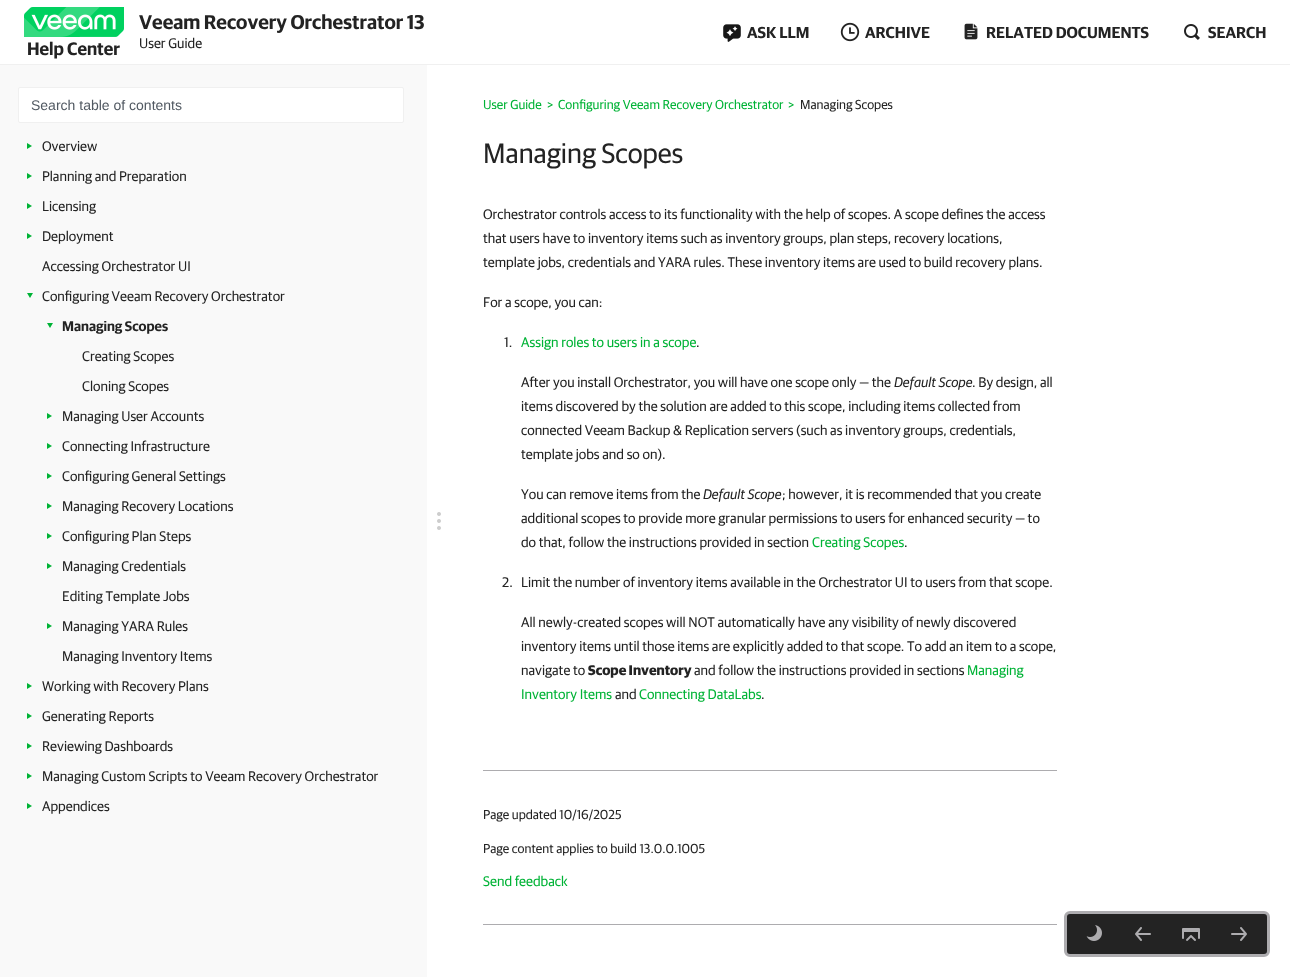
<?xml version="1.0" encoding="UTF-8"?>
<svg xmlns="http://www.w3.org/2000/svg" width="1290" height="977">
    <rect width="100%" height="100%" fill="#FFFFFF"/>
    <rect x="0" y="64" width="1290" height="1" fill="#F0F0F0"/>
    <image x="24" y="7" width="100" height="30" href="img_01.png"/>
    <text x="27" y="55" font-family="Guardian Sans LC" font-size="18" font-weight="600" fill="#232323">Help Center</text>
    <text x="139" y="29" font-family="Guardian Sans LC" font-size="20" font-weight="600" fill="#232323">Veeam Recovery Orchestrator 13</text>
    <text x="139" y="48" font-family="Guardian Sans LC" font-size="14" fill="#232323">User Guide</text>
    <image x="723" y="24" width="18" height="18" href="img_02.png"/>
    <text x="747" y="38" font-family="Guardian Sans LC" font-size="16" font-weight="600" fill="#232323">ASK LLM</text>
    <image x="840" y="22" width="20" height="20" href="img_03.png"/>
    <text x="865" y="38" font-family="Guardian Sans LC" font-size="16" font-weight="600" fill="#232323">ARCHIVE</text>
    <image x="964" y="23" width="14" height="17" href="img_04.png"/>
    <text x="986" y="38" font-family="Guardian Sans LC" font-size="16" font-weight="600" fill="#232323">RELATED DOCUMENTS</text>
    <image x="1184" y="24" width="16" height="16" href="img_05.png"/>
    <text x="1208" y="38" font-family="Guardian Sans LC" font-size="16" font-weight="600" fill="#232323">SEARCH</text>
    <rect x="0" y="65" width="427" height="912" fill="#F9F9F9"/>
    <rect x="18.5" y="87.5" width="385" height="35" rx="1.5" fill="#FFFFFF" stroke="#F0F0F0"/>
    <text x="31" y="110" font-family="Liberation Sans" font-size="14" fill="#505861">Search table of contents</text>
    <path d="M 27 149 V 143 L 32 146 Z" fill="#00B336"/>
    <text x="42" y="151" font-family="Guardian Sans LC" font-size="14" fill="#232323">Overview</text>
    <path d="M 27 179 V 173 L 32 176 Z" fill="#00B336"/>
    <text x="42" y="181" font-family="Guardian Sans LC" font-size="14" fill="#232323">Planning and Preparation</text>
    <path d="M 27 209 V 203 L 32 206 Z" fill="#00B336"/>
    <text x="42" y="211" font-family="Guardian Sans LC" font-size="14" fill="#232323">Licensing</text>
    <path d="M 27 239 V 233 L 32 236 Z" fill="#00B336"/>
    <text x="42" y="241" font-family="Guardian Sans LC" font-size="14" fill="#232323">Deployment</text>
    <text x="42" y="271" font-family="Guardian Sans LC" font-size="14" fill="#232323">Accessing Orchestrator UI</text>
    <path d="M 27 293 H 33 L 30 298 Z" fill="#00B336"/>
    <text x="42" y="301" font-family="Guardian Sans LC" font-size="14" fill="#232323">Configuring Veeam Recovery Orchestrator</text>
    <path d="M 47 323 H 53 L 50 328 Z" fill="#00B336"/>
    <text x="62" y="331" font-family="Guardian Sans LC" font-size="14" font-weight="600" fill="#232323">Managing Scopes</text>
    <text x="82" y="361" font-family="Guardian Sans LC" font-size="14" fill="#232323">Creating Scopes</text>
    <text x="82" y="391" font-family="Guardian Sans LC" font-size="14" fill="#232323">Cloning Scopes</text>
    <path d="M 47 419 V 413 L 52 416 Z" fill="#00B336"/>
    <text x="62" y="421" font-family="Guardian Sans LC" font-size="14" fill="#232323">Managing User Accounts</text>
    <path d="M 47 449 V 443 L 52 446 Z" fill="#00B336"/>
    <text x="62" y="451" font-family="Guardian Sans LC" font-size="14" fill="#232323">Connecting Infrastructure</text>
    <path d="M 47 479 V 473 L 52 476 Z" fill="#00B336"/>
    <text x="62" y="481" font-family="Guardian Sans LC" font-size="14" fill="#232323">Configuring General Settings</text>
    <path d="M 47 509 V 503 L 52 506 Z" fill="#00B336"/>
    <text x="62" y="511" font-family="Guardian Sans LC" font-size="14" fill="#232323">Managing Recovery Locations</text>
    <path d="M 47 539 V 533 L 52 536 Z" fill="#00B336"/>
    <text x="62" y="541" font-family="Guardian Sans LC" font-size="14" fill="#232323">Configuring Plan Steps</text>
    <path d="M 47 569 V 563 L 52 566 Z" fill="#00B336"/>
    <text x="62" y="571" font-family="Guardian Sans LC" font-size="14" fill="#232323">Managing Credentials</text>
    <text x="62" y="601" font-family="Guardian Sans LC" font-size="14" fill="#232323">Editing Template Jobs</text>
    <path d="M 47 629 V 623 L 52 626 Z" fill="#00B336"/>
    <text x="62" y="631" font-family="Guardian Sans LC" font-size="14" fill="#232323">Managing YARA Rules</text>
    <text x="62" y="661" font-family="Guardian Sans LC" font-size="14" fill="#232323">Managing Inventory Items</text>
    <path d="M 27 689 V 683 L 32 686 Z" fill="#00B336"/>
    <text x="42" y="691" font-family="Guardian Sans LC" font-size="14" fill="#232323">Working with Recovery Plans</text>
    <path d="M 27 719 V 713 L 32 716 Z" fill="#00B336"/>
    <text x="42" y="721" font-family="Guardian Sans LC" font-size="14" fill="#232323">Generating Reports</text>
    <path d="M 27 749 V 743 L 32 746 Z" fill="#00B336"/>
    <text x="42" y="751" font-family="Guardian Sans LC" font-size="14" fill="#232323">Reviewing Dashboards</text>
    <path d="M 27 779 V 773 L 32 776 Z" fill="#00B336"/>
    <text x="42" y="781" font-family="Guardian Sans LC" font-size="14" fill="#232323">Managing Custom Scripts to Veeam Recovery Orchestrator</text>
    <path d="M 27 809 V 803 L 32 806 Z" fill="#00B336"/>
    <text x="42" y="811" font-family="Guardian Sans LC" font-size="14" fill="#232323">Appendices</text>
    <image x="437" y="512" width="4" height="18" href="img_06.png"/>
    <text x="483" y="109" font-family="Guardian Sans LC" font-size="13" fill="#00B336">User Guide</text>
    <text x="547" y="109" font-family="Guardian Sans LC" font-size="13" fill="#00B336">&gt;</text>
    <text x="558" y="109" font-family="Guardian Sans LC" font-size="13" fill="#00B336">Configuring Veeam Recovery Orchestrator</text>
    <text x="788" y="109" font-family="Guardian Sans LC" font-size="13" fill="#00B336">&gt;</text>
    <text x="800" y="109" font-family="Guardian Sans LC" font-size="13" fill="#232323">Managing Scopes</text>
    <text x="483" y="163" font-family="Guardian Sans LC" font-size="28" fill="#232323">Managing Scopes</text>
    <text font-family="Guardian Sans LC" font-size="14" fill="#232323">
        <tspan x="483" y="219">Orchestrator controls access to its functionality with the help of scopes. A scope defines the access</tspan>
        <tspan x="483" y="243">that users have to inventory items such as inventory groups, plan steps, recovery locations,</tspan>
        <tspan x="483" y="267">template jobs, credentials and YARA rules. These inventory items are used to build recovery plans.</tspan>
    </text>
    <text x="483" y="307" font-family="Guardian Sans LC" font-size="14" fill="#232323">For a scope, you can:</text>
    <text x="504" y="347" font-family="Guardian Sans LC" font-size="14" fill="#232323">1.</text>
    <text x="521" y="347" font-family="Guardian Sans LC" font-size="14" fill="#00B336">Assign roles to users in a scope</text>
    <text x="696" y="347" font-family="Guardian Sans LC" font-size="14" fill="#232323">.</text>
    <text x="521" y="387" font-family="Guardian Sans LC" font-size="14" fill="#232323">After you install Orchestrator, you will have one scope only — the</text>
    <text x="894" y="387" font-family="Guardian Sans LC" font-size="14" font-style="italic" fill="#232323">Default Scope</text>
    <text x="972" y="387" font-family="Guardian Sans LC" font-size="14" fill="#232323">. By design, all</text>
    <text font-family="Guardian Sans LC" font-size="14" fill="#232323">
        <tspan x="521" y="411">items discovered by the solution are added to this scope, including items collected from</tspan>
        <tspan x="521" y="435">connected Veeam Backup &amp; Replication servers (such as inventory groups, credentials,</tspan>
        <tspan x="521" y="459">template jobs and so on).</tspan>
    </text>
    <text x="521" y="499" font-family="Guardian Sans LC" font-size="14" fill="#232323">You can remove items from the</text>
    <text x="703" y="499" font-family="Guardian Sans LC" font-size="14" font-style="italic" fill="#232323">Default Scope</text>
    <text x="782" y="499" font-family="Guardian Sans LC" font-size="14" fill="#232323">; however, it is recommended that you create</text>
    <text font-family="Guardian Sans LC" font-size="14" fill="#232323">
        <tspan x="521" y="523">additional scopes to provide more granular permissions to users for enhanced security — to</tspan>
        <tspan x="521" y="547">do that, follow the instructions provided in section</tspan>
    </text>
    <text x="812" y="547" font-family="Guardian Sans LC" font-size="14" fill="#00B336">Creating Scopes</text>
    <text x="904" y="547" font-family="Guardian Sans LC" font-size="14" fill="#232323">.</text>
    <text x="502" y="587" font-family="Guardian Sans LC" font-size="14" fill="#232323">2.</text>
    <text x="521" y="587" font-family="Guardian Sans LC" font-size="14" fill="#232323">Limit the number of inventory items available in the Orchestrator UI to users from that scope.</text>
    <text font-family="Guardian Sans LC" font-size="14" fill="#232323">
        <tspan x="521" y="627">All newly-created scopes will NOT automatically have any visibility of newly discovered</tspan>
        <tspan x="521" y="651">inventory items until those items are explicitly added to that scope. To add an item to a scope,</tspan>
        <tspan x="521" y="675">navigate to</tspan>
    </text>
    <text x="588" y="675" font-family="Guardian Sans LC" font-size="14" font-weight="700" fill="#232323">Scope Inventory</text>
    <text x="694" y="675" font-family="Guardian Sans LC" font-size="14" fill="#232323">and follow the instructions provided in sections</text>
    <text x="967" y="675" font-family="Guardian Sans LC" font-size="14" fill="#00B336">Managing</text>
    <text x="521" y="699" font-family="Guardian Sans LC" font-size="14" fill="#00B336">Inventory Items</text>
    <text x="615" y="699" font-family="Guardian Sans LC" font-size="14" fill="#232323">and</text>
    <text x="639" y="699" font-family="Guardian Sans LC" font-size="14" fill="#00B336">Connecting DataLabs</text>
    <text x="761" y="699" font-family="Guardian Sans LC" font-size="14" fill="#232323">.</text>
    <rect x="483" y="770" width="574" height="1" fill="#ADACAF"/>
    <text x="483" y="819" font-family="Guardian Sans LC" font-size="13" fill="#232323">Page updated 10/16/2025</text>
    <text x="483" y="853" font-family="Guardian Sans LC" font-size="13" fill="#232323">Page content applies to build 13.0.0.1005</text>
    <text x="483" y="886" font-family="Guardian Sans LC" font-size="14" fill="#00B336">Send feedback</text>
    <rect x="483" y="924" width="574" height="1" fill="#ADACAF"/>
    <rect x="1065.5" y="912.5" width="203" height="43" rx="4.5" fill="#232323" stroke="#ADACAF" stroke-width="3"/>
    <image x="1086" y="925" width="16" height="16" href="img_07.png"/>
    <image x="1135" y="927" width="16" height="14" href="img_08.png"/>
    <image x="1182" y="928" width="18" height="13" href="img_09.png"/>
    <image x="1231" y="927" width="16" height="14" href="img_10.png"/>
</svg>
